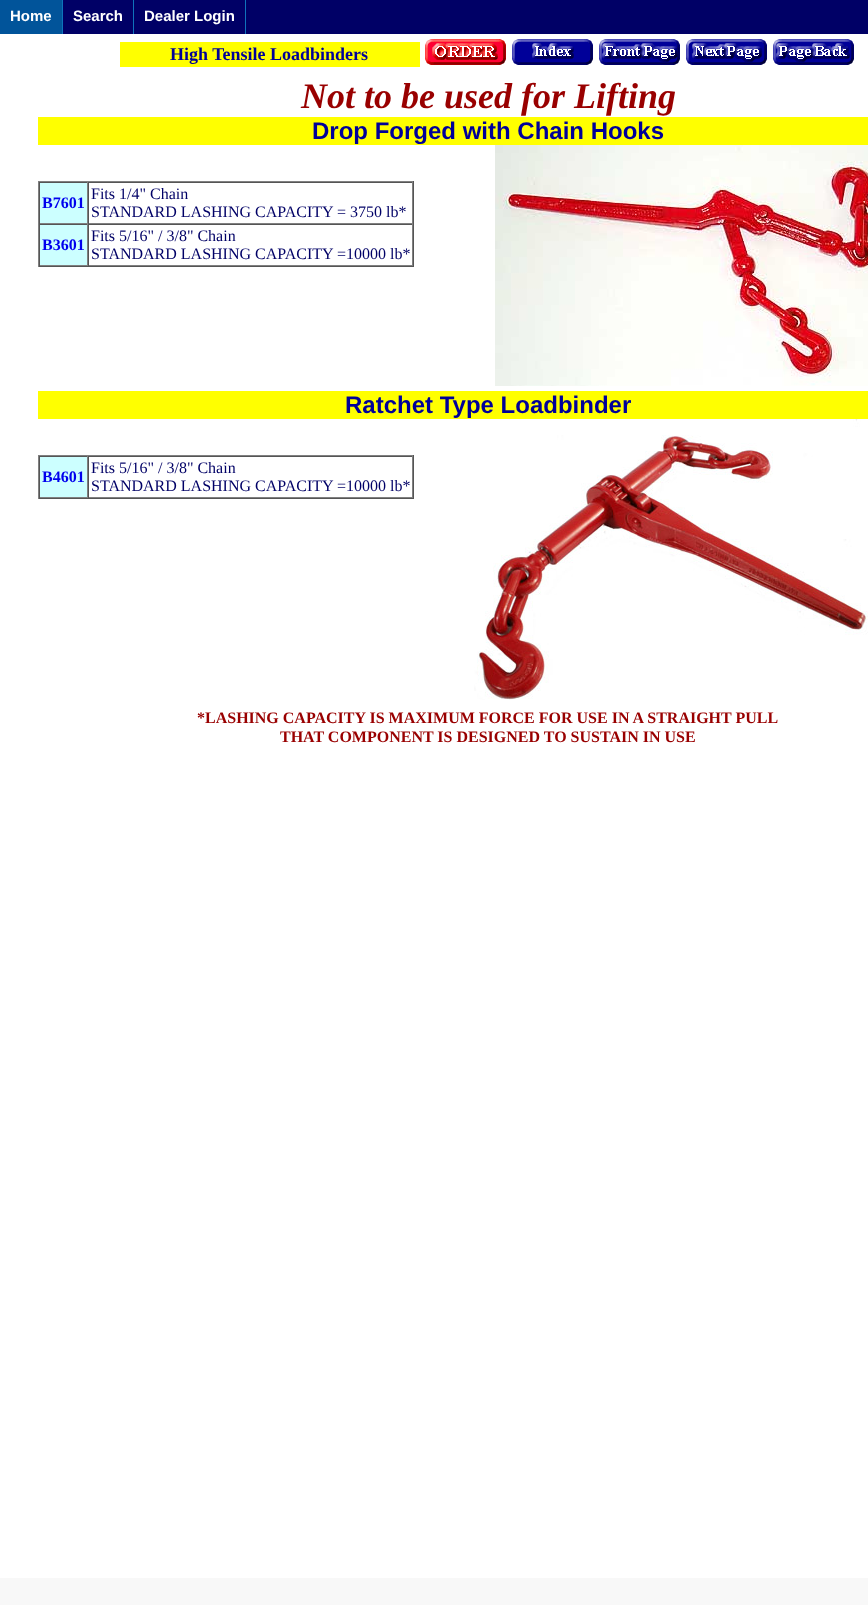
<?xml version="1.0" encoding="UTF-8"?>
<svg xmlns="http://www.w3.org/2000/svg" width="868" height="1605">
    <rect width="100%" height="100%" fill="#FFFFFF"/>
    <rect x="63" y="0" width="805" height="34" fill="#000066"/>
    <rect x="0" y="0" width="62" height="34" fill="#01549A"/>
    <rect x="62" y="0" width="1" height="34" fill="#0F73BB"/>
    <text x="10" y="21" font-family="Liberation Sans" font-size="15" font-weight="700" fill="#FFFFFF">Home</text>
    <rect x="133" y="0" width="1" height="34" fill="#0F73BB"/>
    <text x="73" y="21" font-family="Liberation Sans" font-size="15" font-weight="700" fill="#FFFFFF">Search</text>
    <rect x="245" y="0" width="1" height="34" fill="#0F73BB"/>
    <text x="144" y="21" font-family="Liberation Sans" font-size="15" font-weight="700" fill="#FFFFFF">Dealer Login</text>
    <rect x="120" y="42" width="300" height="25" fill="#FFFF00"/>
    <text x="170" y="60" font-family="Liberation Serif" font-size="18" font-weight="700" fill="#000099">High Tensile Loadbinders</text>
    <image x="425" y="39" width="81" height="26" href="img_01.png"/>
    <image x="512" y="39" width="81" height="26" href="img_02.png"/>
    <image x="599" y="39" width="81" height="26" href="img_03.png"/>
    <image x="686" y="39" width="81" height="26" href="img_04.png"/>
    <image x="773" y="39" width="81" height="26" href="img_05.png"/>
    <text x="301" y="108" font-family="Liberation Serif" font-size="36" font-weight="700" font-style="italic" fill="#990000">Not to be used for Lifting</text>
    <rect x="38" y="117" width="830" height="28" fill="#FFFF00"/>
    <text x="312" y="139" font-family="Liberation Sans" font-size="24" font-weight="700" fill="#000099">Drop Forged with Chain Hooks</text>
    <rect x="38" y="181" width="376" height="1" fill="#808080"/>
    <rect x="413" y="181" width="1" height="86" fill="#555555"/>
    <rect x="38" y="266" width="376" height="1" fill="#555555"/>
    <rect x="38" y="181" width="1" height="86" fill="#808080"/>
    <rect x="40" y="183" width="47" height="40" fill="#CCFFFF"/>
    <rect x="39" y="182" width="374" height="1" fill="#555555"/>
    <rect x="87" y="182" width="1" height="42" fill="#808080"/>
    <rect x="39" y="223" width="49" height="1" fill="#808080"/>
    <rect x="39" y="182" width="1" height="42" fill="#555555"/>
    <text x="42" y="208" font-family="Liberation Serif" font-size="16" font-weight="700" fill="#0000EE">B7601</text>
    <rect x="412" y="182" width="1" height="42" fill="#808080"/>
    <rect x="88" y="223" width="325" height="1" fill="#808080"/>
    <rect x="88" y="182" width="1" height="42" fill="#555555"/>
    <text font-family="Liberation Serif" font-size="16" fill="#000066">
        <tspan x="91" y="199">Fits 1/4" Chain</tspan>
        <tspan x="91" y="217">STANDARD LASHING CAPACITY = 3750 lb*</tspan>
    </text>
    <rect x="40" y="225" width="47" height="40" fill="#CCFFFF"/>
    <rect x="39" y="224" width="374" height="1" fill="#555555"/>
    <rect x="87" y="224" width="1" height="42" fill="#808080"/>
    <rect x="39" y="265" width="49" height="1" fill="#808080"/>
    <rect x="39" y="224" width="1" height="42" fill="#555555"/>
    <text x="42" y="250" font-family="Liberation Serif" font-size="16" font-weight="700" fill="#0000EE">B3601</text>
    <rect x="412" y="224" width="1" height="42" fill="#808080"/>
    <rect x="88" y="265" width="325" height="1" fill="#808080"/>
    <rect x="88" y="224" width="1" height="42" fill="#555555"/>
    <text font-family="Liberation Serif" font-size="16" fill="#000066">
        <tspan x="91" y="241">Fits 5/16" / 3/8" Chain</tspan>
        <tspan x="91" y="259">STANDARD LASHING CAPACITY =10000 lb*</tspan>
    </text>
    <image x="495" y="145" width="373" height="241" href="img_06.png"/>
    <rect x="38" y="391" width="830" height="28" fill="#FFFF00"/>
    <text x="345" y="413" font-family="Liberation Sans" font-size="24" font-weight="700" fill="#000099">Ratchet Type Loadbinder</text>
    <rect x="38" y="455" width="376" height="1" fill="#808080"/>
    <rect x="413" y="455" width="1" height="44" fill="#555555"/>
    <rect x="38" y="498" width="376" height="1" fill="#555555"/>
    <rect x="38" y="455" width="1" height="44" fill="#808080"/>
    <rect x="40" y="457" width="47" height="40" fill="#CCFFFF"/>
    <rect x="39" y="456" width="374" height="1" fill="#555555"/>
    <rect x="87" y="456" width="1" height="42" fill="#808080"/>
    <rect x="39" y="497" width="49" height="1" fill="#808080"/>
    <rect x="39" y="456" width="1" height="42" fill="#555555"/>
    <text x="42" y="482" font-family="Liberation Serif" font-size="16" font-weight="700" fill="#0000EE">B4601</text>
    <rect x="412" y="456" width="1" height="42" fill="#808080"/>
    <rect x="88" y="497" width="325" height="1" fill="#808080"/>
    <rect x="88" y="456" width="1" height="42" fill="#555555"/>
    <text font-family="Liberation Serif" font-size="16" fill="#000066">
        <tspan x="91" y="473">Fits 5/16" / 3/8" Chain</tspan>
        <tspan x="91" y="491">STANDARD LASHING CAPACITY =10000 lb*</tspan>
    </text>
    <image x="474" y="419" width="394" height="281" href="img_07.png"/>
    <text x="197" y="723" font-family="Liberation Serif" font-size="16" font-weight="700" fill="#990000">*LASHING CAPACITY IS MAXIMUM FORCE FOR USE IN A STRAIGHT PULL</text>
    <text x="280" y="742" font-family="Liberation Serif" font-size="16" font-weight="700" fill="#990000">THAT COMPONENT IS DESIGNED TO SUSTAIN IN USE</text>
    <rect x="0" y="1578" width="868" height="27" fill="#F8F8F8"/>
</svg>
